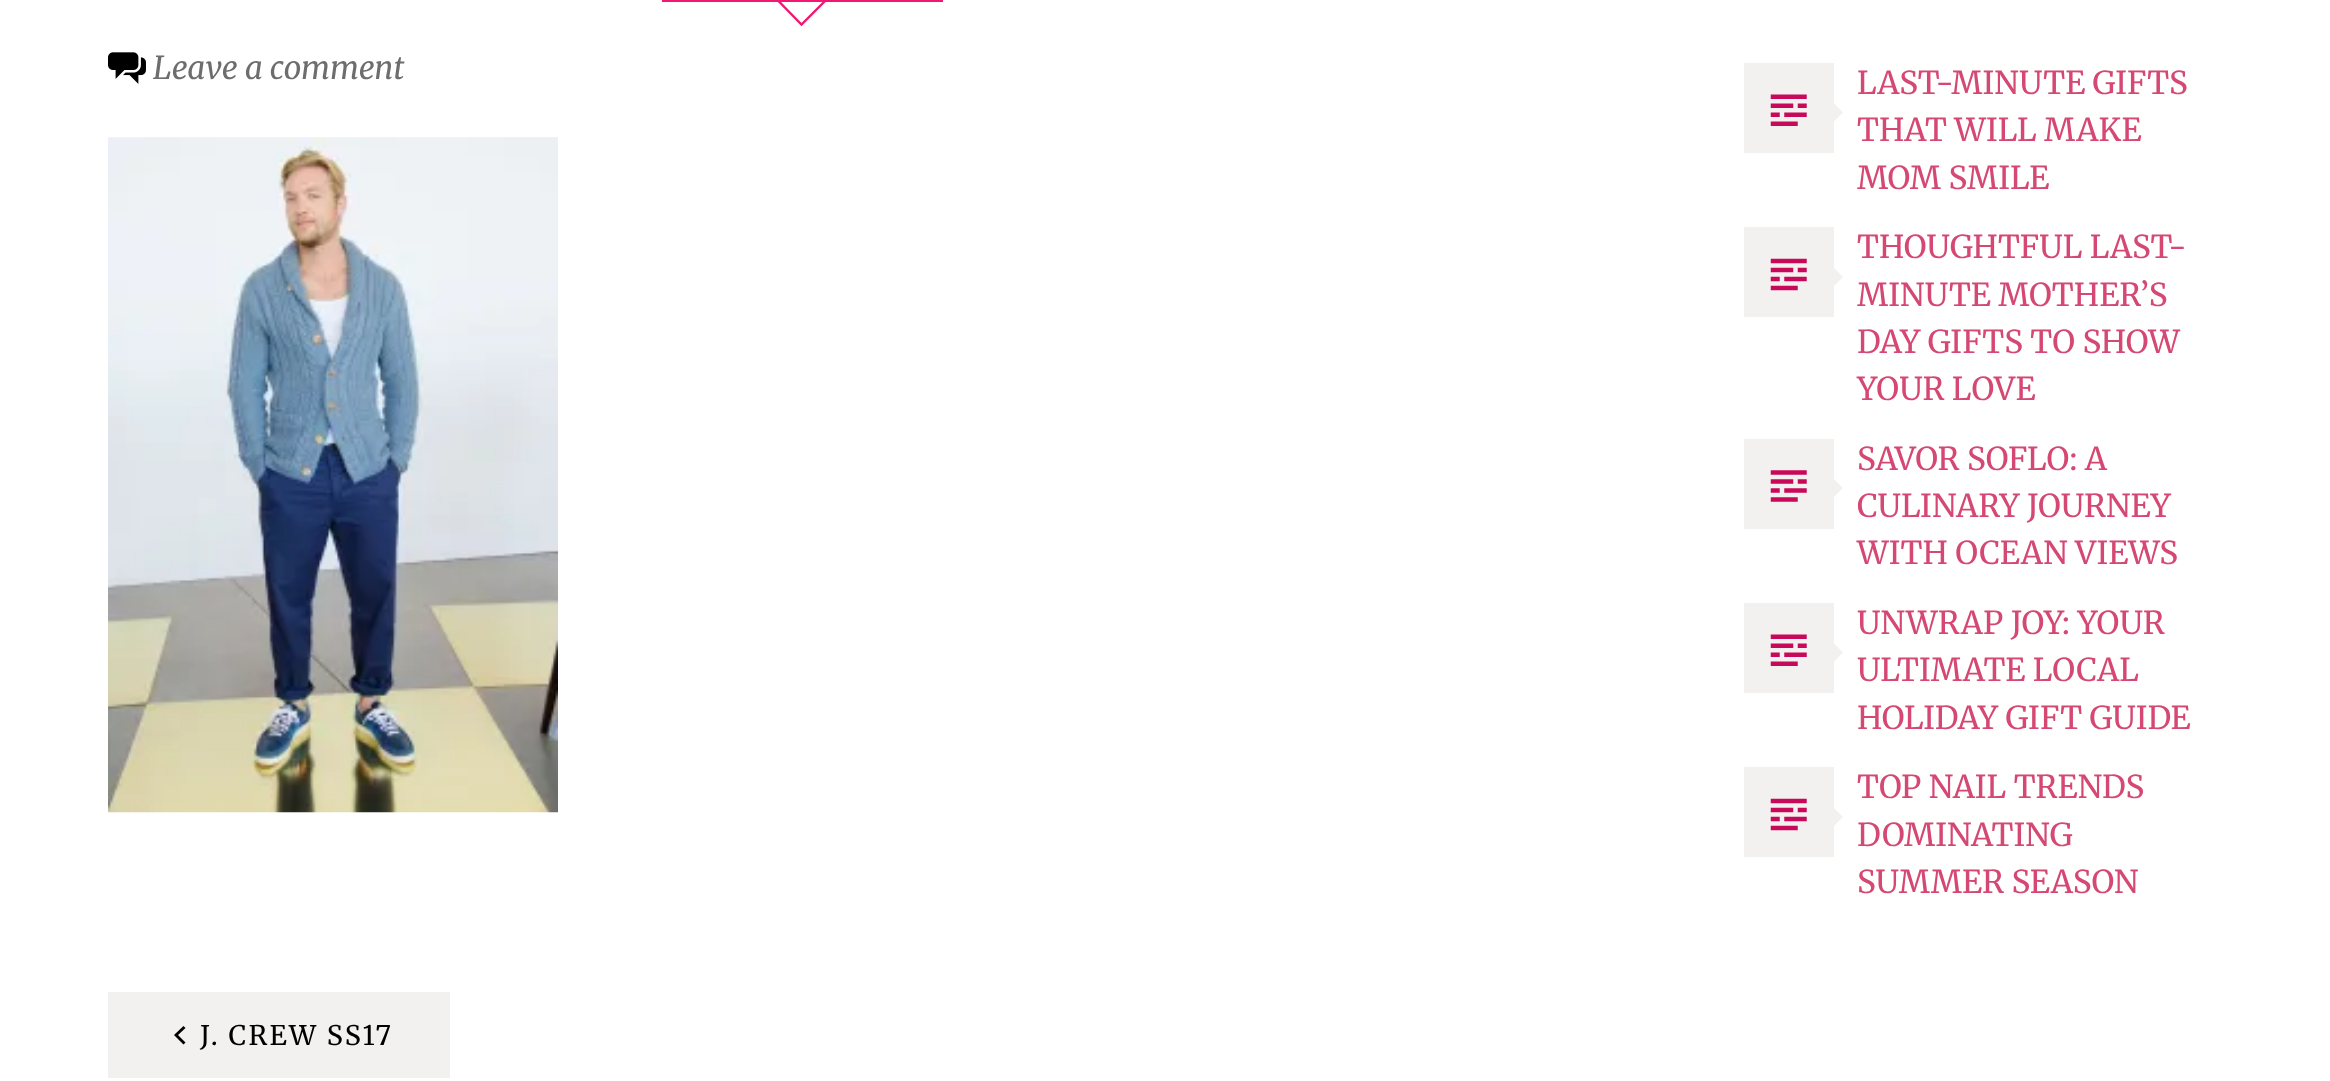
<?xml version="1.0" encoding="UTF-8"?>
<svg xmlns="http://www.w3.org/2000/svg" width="2330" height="1081">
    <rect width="100%" height="100%" fill="#FFFFFF"/>
    <rect x="662" y="0" width="281" height="2" fill="#F01872"/>
    <path d="M 801.5 -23 L 825.5 0.5 L 801.5 24.5 L 778 0.5 Z" fill="none" stroke="#F01872" stroke-width="2.3"/>
    <image x="108" y="52" width="38" height="32" href="img_01.png"/>
    <text x="153" y="79" font-family="Merriweather" font-size="31.5" font-style="italic" fill="#6D6D6D">Leave a comment</text>
    <image x="108" y="137" width="450" height="676" href="img_02.png"/>
    <rect x="108" y="992" width="342" height="86" fill="#F3F0F0"/>
    <path d="M 185.5 1042.5 L 183.5 1044.5 L 174 1035 L 183.5 1026 L 185.5 1028 L 178 1035 Z" fill="#000000"/>
    <text x="200" y="1045" font-family="Merriweather" font-size="27" letter-spacing="2.25" fill="#000000">J. CREW SS17</text>
    <rect x="1744" y="63" width="90" height="90" fill="#F3F0F0"/>
    <image x="1770" y="94" width="37" height="32" href="img_03.png"/>
    <path d="M 1834 121.5 V 103.5 L 1843 112.5 Z" fill="#F3F0F0"/>
    <text font-family="Merriweather" font-size="31.5" fill="#D54874">
        <tspan x="1857" y="94">LAST-MINUTE GIFTS</tspan>
        <tspan x="1857" y="141">THAT WILL MAKE</tspan>
        <tspan x="1857" y="189">MOM SMILE</tspan>
    </text>
    <rect x="1744" y="227" width="90" height="90" fill="#F3F0F0"/>
    <image x="1770" y="258" width="37" height="33" href="img_04.png"/>
    <path d="M 1834 286 V 268 L 1843 277 Z" fill="#F3F0F0"/>
    <text font-family="Merriweather" font-size="31.5" fill="#D54874">
        <tspan x="1857" y="258">THOUGHTFUL LAST-</tspan>
        <tspan x="1857" y="306">MINUTE MOTHER’S</tspan>
        <tspan x="1857" y="353">DAY GIFTS TO SHOW</tspan>
        <tspan x="1857" y="400">YOUR LOVE</tspan>
    </text>
    <rect x="1744" y="439" width="90" height="90" fill="#F3F0F0"/>
    <image x="1770" y="470" width="37" height="32" href="img_05.png"/>
    <path d="M 1834 497 V 479 L 1843 488 Z" fill="#F3F0F0"/>
    <text font-family="Merriweather" font-size="31.5" fill="#D54874">
        <tspan x="1857" y="470">SAVOR SOFLO: A</tspan>
        <tspan x="1857" y="517">CULINARY JOURNEY</tspan>
        <tspan x="1857" y="564">WITH OCEAN VIEWS</tspan>
    </text>
    <rect x="1744" y="603" width="90" height="90" fill="#F3F0F0"/>
    <image x="1770" y="634" width="37" height="32" href="img_03.png"/>
    <path d="M 1834 661.5 V 643.5 L 1843 652.5 Z" fill="#F3F0F0"/>
    <text font-family="Merriweather" font-size="31.5" fill="#D54874">
        <tspan x="1857" y="634">UNWRAP JOY: YOUR</tspan>
        <tspan x="1857" y="681">ULTIMATE LOCAL</tspan>
        <tspan x="1857" y="729">HOLIDAY GIFT GUIDE</tspan>
    </text>
    <rect x="1744" y="767" width="90" height="90" fill="#F3F0F0"/>
    <image x="1770" y="798" width="37" height="33" href="img_04.png"/>
    <path d="M 1834 826 V 808 L 1843 817 Z" fill="#F3F0F0"/>
    <text font-family="Merriweather" font-size="31.5" fill="#D54874">
        <tspan x="1857" y="798">TOP NAIL TRENDS</tspan>
        <tspan x="1857" y="846">DOMINATING</tspan>
        <tspan x="1857" y="893">SUMMER SEASON</tspan>
    </text>
</svg>
